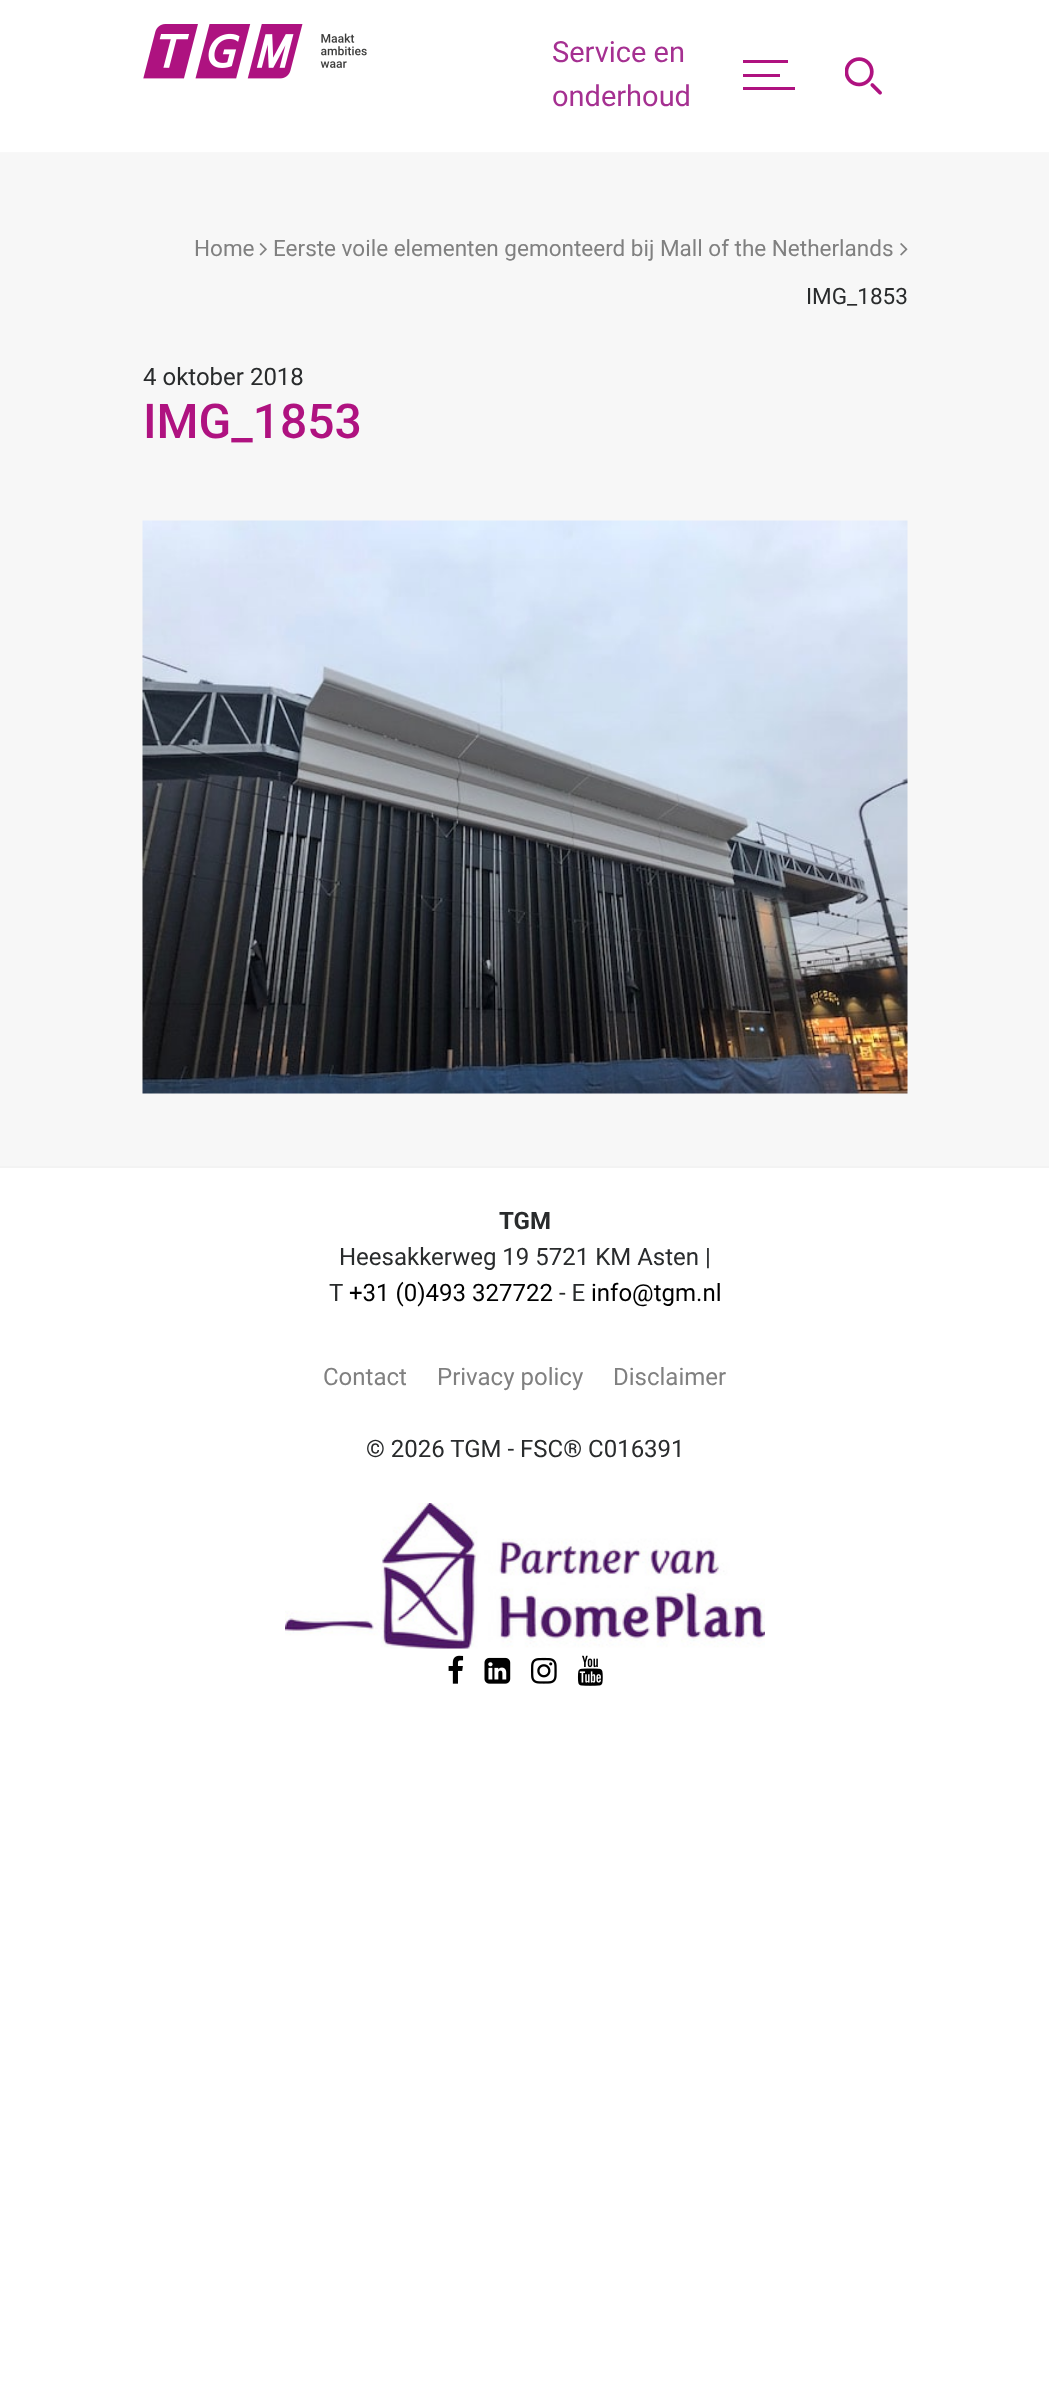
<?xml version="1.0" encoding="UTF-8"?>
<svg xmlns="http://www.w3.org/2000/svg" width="1049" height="2390">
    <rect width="100%" height="100%" fill="#FFFFFF"/>
    <rect x="0" y="152" width="1049" height="1" fill="#F8F8F8"/>
    <image x="143" y="24" width="224" height="55" href="img_01.png"/>
    <text font-family="Roboto" font-size="29" fill="#A53091">
        <tspan x="552" y="62">Service en</tspan>
        <tspan x="552" y="106">onderhoud</tspan>
    </text>
    <rect x="743" y="60" width="45" height="3" fill="#AF1280"/>
    <rect x="743" y="74" width="37" height="3" fill="#AF1280"/>
    <rect x="743" y="87" width="52" height="3" fill="#AF1280"/>
    <image x="845" y="57" width="37" height="38" href="img_02.png"/>
    <rect x="0" y="153" width="1049" height="1013" fill="#F7F7F7"/>
    <text x="194" y="256" font-family="Roboto" font-size="22.5" fill="#808080">Home</text>
    <image x="259" y="243" width="8" height="13" href="img_03.png"/>
    <text x="273" y="256" font-family="Roboto" font-size="22.5" fill="#808080">Eerste voile elementen gemonteerd bij Mall of the Netherlands</text>
    <image x="900" y="243" width="8" height="13" href="img_04.png"/>
    <text x="806" y="304" font-family="Roboto" font-size="22.5" fill="#292B2C">IMG_1853</text>
    <text x="143" y="385" font-family="Roboto" font-size="24" fill="#292B2C">4 oktober 2018</text>
    <text x="143" y="438" font-family="Roboto" font-size="48" font-weight="500" fill="#AF1280">IMG_1853</text>
    <image x="142" y="520" width="766" height="574" href="img_05.png"/>
    <rect x="0" y="1166" width="1049" height="2" fill="#F3F3F3"/>
    <text x="499" y="1229" font-family="Roboto" font-size="24" font-weight="700" fill="#292B2C">TGM</text>
    <text x="339" y="1265" font-family="Roboto" font-size="24" fill="#292B2C">Heesakkerweg 19 5721 KM Asten |</text>
    <text x="329" y="1301" font-family="Roboto" font-size="24" fill="#292B2C">T</text>
    <text x="349" y="1301" font-family="Roboto" font-size="24" fill="#000000">+31 (0)493 327722</text>
    <text x="559" y="1301" font-family="Roboto" font-size="24" fill="#292B2C">- E</text>
    <text x="591" y="1301" font-family="Roboto" font-size="24" fill="#000000">info@tgm.nl</text>
    <text x="323" y="1385" font-family="Roboto" font-size="24" fill="#808080">Contact</text>
    <text x="437" y="1385" font-family="Roboto" font-size="24" fill="#808080">Privacy policy</text>
    <text x="613" y="1385" font-family="Roboto" font-size="24" fill="#808080">Disclaimer</text>
    <text x="366" y="1457" font-family="Roboto" font-size="24" fill="#292B2C">© 2026 TGM - FSC® C016391</text>
    <image x="285" y="1503" width="480" height="146" href="img_06.png"/>
    <image x="448" y="1655" width="16" height="29" href="img_07.png"/>
    <image x="484" y="1657" width="27" height="27" href="img_08.png"/>
    <image x="531" y="1657" width="26" height="27" href="img_09.png"/>
    <image x="577" y="1655" width="26" height="31" href="img_10.png"/>
</svg>
